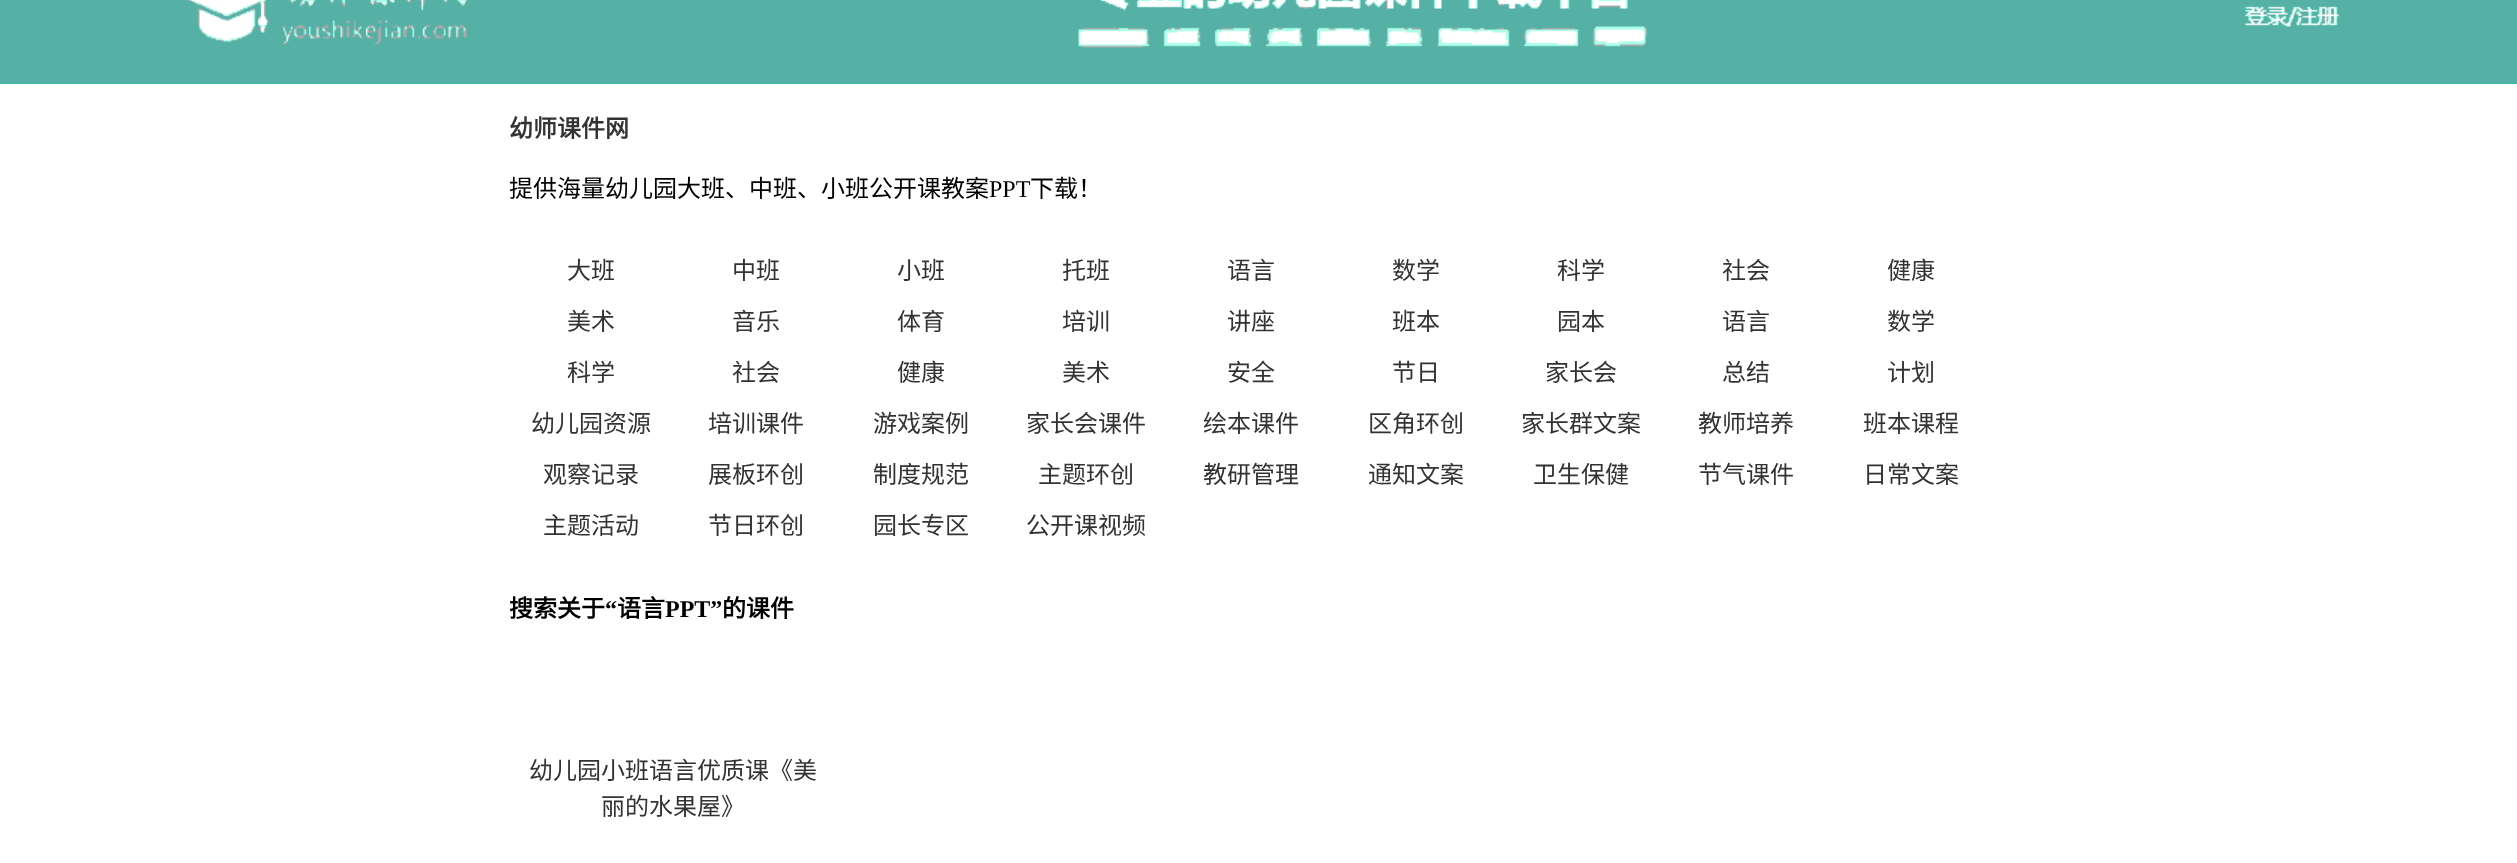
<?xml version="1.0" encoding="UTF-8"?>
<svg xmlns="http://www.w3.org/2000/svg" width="2517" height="863">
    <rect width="100%" height="100%" fill="#FFFFFF"/>
    <rect x="0" y="83" width="2517" height="1" fill="#38B9A3"/>
    <image x="0" y="0" width="2517" height="84" href="img_01.png"/>
    <text x="509" y="137" font-family="Noto Sans CJK SC" font-size="24" font-weight="700" fill="#333333">幼师课件网</text>
    <text x="509" y="197" font-family="Noto Sans CJK SC" font-size="24" fill="#000000">提供海量幼儿园大班、中班、小班公开课教案</text>
    <text x="989" y="197" font-family="Liberation Serif" font-size="24" fill="#000000">PPT</text>
    <text x="1030" y="197" font-family="Noto Sans CJK SC" font-size="24" fill="#000000">下载！</text>
    <text x="567" y="279" font-family="Noto Sans CJK SC" font-size="24" fill="#333333">大班</text>
    <text x="732" y="279" font-family="Noto Sans CJK SC" font-size="24" fill="#333333">中班</text>
    <text x="897" y="279" font-family="Noto Sans CJK SC" font-size="24" fill="#333333">小班</text>
    <text x="1062" y="279" font-family="Noto Sans CJK SC" font-size="24" fill="#333333">托班</text>
    <text x="1227" y="279" font-family="Noto Sans CJK SC" font-size="24" fill="#333333">语言</text>
    <text x="1392" y="279" font-family="Noto Sans CJK SC" font-size="24" fill="#333333">数学</text>
    <text x="1557" y="279" font-family="Noto Sans CJK SC" font-size="24" fill="#333333">科学</text>
    <text x="1722" y="279" font-family="Noto Sans CJK SC" font-size="24" fill="#333333">社会</text>
    <text x="1887" y="279" font-family="Noto Sans CJK SC" font-size="24" fill="#333333">健康</text>
    <text x="567" y="330" font-family="Noto Sans CJK SC" font-size="24" fill="#333333">美术</text>
    <text x="732" y="330" font-family="Noto Sans CJK SC" font-size="24" fill="#333333">音乐</text>
    <text x="897" y="330" font-family="Noto Sans CJK SC" font-size="24" fill="#333333">体育</text>
    <text x="1062" y="330" font-family="Noto Sans CJK SC" font-size="24" fill="#333333">培训</text>
    <text x="1227" y="330" font-family="Noto Sans CJK SC" font-size="24" fill="#333333">讲座</text>
    <text x="1392" y="330" font-family="Noto Sans CJK SC" font-size="24" fill="#333333">班本</text>
    <text x="1557" y="330" font-family="Noto Sans CJK SC" font-size="24" fill="#333333">园本</text>
    <text x="1722" y="330" font-family="Noto Sans CJK SC" font-size="24" fill="#333333">语言</text>
    <text x="1887" y="330" font-family="Noto Sans CJK SC" font-size="24" fill="#333333">数学</text>
    <text x="567" y="381" font-family="Noto Sans CJK SC" font-size="24" fill="#333333">科学</text>
    <text x="732" y="381" font-family="Noto Sans CJK SC" font-size="24" fill="#333333">社会</text>
    <text x="897" y="381" font-family="Noto Sans CJK SC" font-size="24" fill="#333333">健康</text>
    <text x="1062" y="381" font-family="Noto Sans CJK SC" font-size="24" fill="#333333">美术</text>
    <text x="1227" y="381" font-family="Noto Sans CJK SC" font-size="24" fill="#333333">安全</text>
    <text x="1392" y="381" font-family="Noto Sans CJK SC" font-size="24" fill="#333333">节日</text>
    <text x="1545" y="381" font-family="Noto Sans CJK SC" font-size="24" fill="#333333">家长会</text>
    <text x="1722" y="381" font-family="Noto Sans CJK SC" font-size="24" fill="#333333">总结</text>
    <text x="1887" y="381" font-family="Noto Sans CJK SC" font-size="24" fill="#333333">计划</text>
    <text x="531" y="432" font-family="Noto Sans CJK SC" font-size="24" fill="#333333">幼儿园资源</text>
    <text x="708" y="432" font-family="Noto Sans CJK SC" font-size="24" fill="#333333">培训课件</text>
    <text x="873" y="432" font-family="Noto Sans CJK SC" font-size="24" fill="#333333">游戏案例</text>
    <text x="1026" y="432" font-family="Noto Sans CJK SC" font-size="24" fill="#333333">家长会课件</text>
    <text x="1203" y="432" font-family="Noto Sans CJK SC" font-size="24" fill="#333333">绘本课件</text>
    <text x="1368" y="432" font-family="Noto Sans CJK SC" font-size="24" fill="#333333">区角环创</text>
    <text x="1521" y="432" font-family="Noto Sans CJK SC" font-size="24" fill="#333333">家长群文案</text>
    <text x="1698" y="432" font-family="Noto Sans CJK SC" font-size="24" fill="#333333">教师培养</text>
    <text x="1863" y="432" font-family="Noto Sans CJK SC" font-size="24" fill="#333333">班本课程</text>
    <text x="543" y="483" font-family="Noto Sans CJK SC" font-size="24" fill="#333333">观察记录</text>
    <text x="708" y="483" font-family="Noto Sans CJK SC" font-size="24" fill="#333333">展板环创</text>
    <text x="873" y="483" font-family="Noto Sans CJK SC" font-size="24" fill="#333333">制度规范</text>
    <text x="1038" y="483" font-family="Noto Sans CJK SC" font-size="24" fill="#333333">主题环创</text>
    <text x="1203" y="483" font-family="Noto Sans CJK SC" font-size="24" fill="#333333">教研管理</text>
    <text x="1368" y="483" font-family="Noto Sans CJK SC" font-size="24" fill="#333333">通知文案</text>
    <text x="1533" y="483" font-family="Noto Sans CJK SC" font-size="24" fill="#333333">卫生保健</text>
    <text x="1698" y="483" font-family="Noto Sans CJK SC" font-size="24" fill="#333333">节气课件</text>
    <text x="1863" y="483" font-family="Noto Sans CJK SC" font-size="24" fill="#333333">日常文案</text>
    <text x="543" y="534" font-family="Noto Sans CJK SC" font-size="24" fill="#333333">主题活动</text>
    <text x="708" y="534" font-family="Noto Sans CJK SC" font-size="24" fill="#333333">节日环创</text>
    <text x="873" y="534" font-family="Noto Sans CJK SC" font-size="24" fill="#333333">园长专区</text>
    <text x="1026" y="534" font-family="Noto Sans CJK SC" font-size="24" fill="#333333">公开课视频</text>
    <text x="509" y="617" font-family="Noto Sans CJK SC" font-size="24" font-weight="700" fill="#000000">搜索关于</text>
    <text x="605" y="617" font-family="Liberation Serif" font-size="24" font-weight="700" fill="#000000">“</text>
    <text x="617" y="617" font-family="Noto Sans CJK SC" font-size="24" font-weight="700" fill="#000000">语言</text>
    <text x="665" y="617" font-family="Liberation Serif" font-size="24" font-weight="700" fill="#000000">PPT”</text>
    <text x="722" y="617" font-family="Noto Sans CJK SC" font-size="24" font-weight="700" fill="#000000">的课件</text>
    <text x="529" y="779" font-family="Noto Sans CJK SC" font-size="24" fill="#333333">幼儿园小班语言优质课《美</text>
    <text x="601" y="815" font-family="Noto Sans CJK SC" font-size="24" fill="#333333">丽的水果屋》</text>
</svg>
